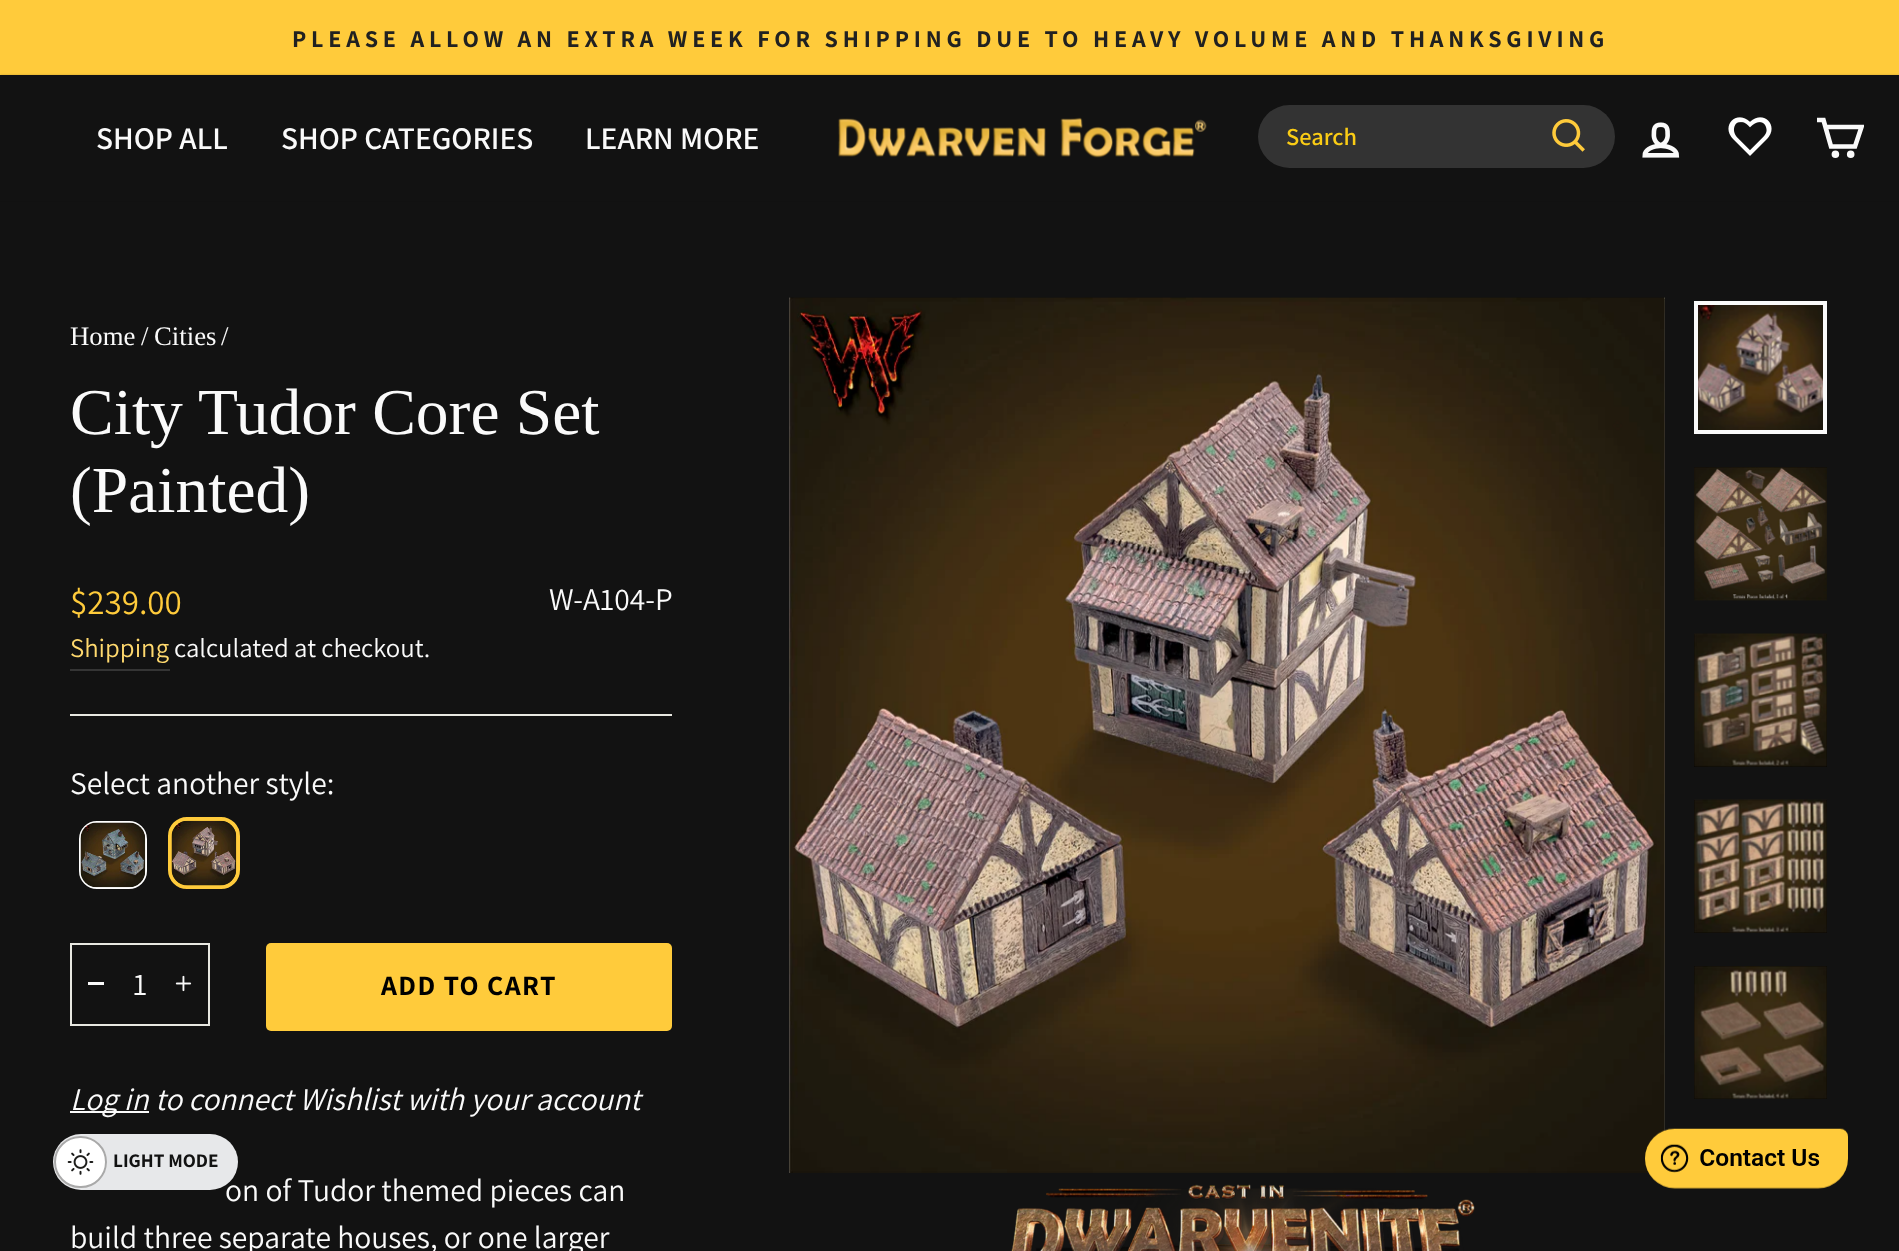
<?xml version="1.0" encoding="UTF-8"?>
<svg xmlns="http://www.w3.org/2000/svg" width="1899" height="1251">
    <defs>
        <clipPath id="clip1"><path d="M 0 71 H 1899 V 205 H 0 Z M 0 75 H 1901 V 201 H 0 Z" clip-rule="evenodd"/></clipPath>
        <filter id="blur1" x="-50%" y="-200%" width="200%" height="500%"><feGaussianBlur stdDeviation="1"/></filter>
        <clipPath id="clip2"><rect x="1815" y="114" width="49" height="49"/></clipPath>
    </defs>
    <rect width="100%" height="100%" fill="#121212"/>
    <rect x="0" y="0" width="1899" height="75" fill="#FFCB3B"/>
    <text x="292" y="47" font-family="Assistant" font-size="24.1" font-weight="700" letter-spacing="4.82" fill="#212121">PLEASE ALLOW AN EXTRA WEEK FOR SHIPPING DUE TO HEAVY VOLUME AND THANKSGIVING</text>
    <g clip-path="url(#clip1)">
        <rect x="0" y="75" width="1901" height="126" fill="#000000" fill-opacity="0.2" filter="url(#blur1)"/>
    </g>
    <text x="96" y="149" font-family="Assistant" font-size="31.5" font-weight="600" fill="#FAFAFA">SHOP ALL</text>
    <text x="281" y="149" font-family="Assistant" font-size="31.5" font-weight="600" fill="#FAFAFA">SHOP CATEGORIES</text>
    <text x="585" y="149" font-family="Assistant" font-size="31.5" font-weight="600" fill="#FAFAFA">LEARN MORE</text>
    <image x="838" y="117" width="369" height="41" href="img_01.png"/>
    <rect x="1258" y="105" width="357" height="63" rx="31.5" fill="#333333"/>
    <text x="1286" y="145" font-family="Assistant" font-size="24.5" font-weight="600" fill="#FACC15">Search</text>
    <image x="1552" y="119" width="33" height="33" href="img_02.png"/>
    <image x="1642" y="122" width="38" height="36" href="img_03.png"/>
    <image x="1728" y="117" width="44" height="39" href="img_04.png"/>
    <g clip-path="url(#clip2)">
        <path d="M 1825.5 127 H 1861.5 L 1855 146.5 H 1831 L 1823.5 120 H 1817" fill="none" stroke="#FAFAFA" stroke-width="4.6"/>
    </g>
    <circle cx="1835.4" cy="154.3" r="1.5" fill="#FAFAFA" stroke="#FAFAFA" stroke-width="4.6"/>
    <circle cx="1850.7" cy="154.3" r="1.5" fill="#FAFAFA" stroke="#FAFAFA" stroke-width="4.6"/>
    <text x="70" y="345" font-family="Liberation Serif" font-size="26.75" fill="#FAFAFA">Home</text>
    <text x="141" y="345" font-family="Liberation Serif" font-size="26.75" fill="#FAFAFA">/</text>
    <text x="154" y="345" font-family="Liberation Serif" font-size="26.75" fill="#FAFAFA">Cities</text>
    <text x="221" y="345" font-family="Liberation Serif" font-size="26.75" fill="#FAFAFA">/</text>
    <text font-family="Liberation Serif" font-size="65.5" fill="#FAFAFA">
        <tspan x="70" y="434">City Tudor Core Set</tspan>
        <tspan x="70" y="512">(Painted)</tspan>
    </text>
    <text x="70" y="614" font-family="Assistant" font-size="35" fill="#FFCB3B">$239.00</text>
    <rect x="70" y="669" width="100" height="2" fill="#353535"/>
    <text x="70" y="657" font-family="Assistant" font-size="26.75" fill="#FFD96E">Shipping</text>
    <text x="174" y="657" font-family="Assistant" font-size="26.75" fill="#FAFAFA">calculated at checkout.</text>
    <text x="549" y="610" font-family="Assistant" font-size="31.5" fill="#FAFAFA">W-A104-P</text>
    <rect x="70" y="714" width="602" height="2" fill="#E8E8E1"/>
    <text x="70" y="794" font-family="Assistant" font-size="31.5" fill="#FAFAFA">Select another style:</text>
    <rect x="80" y="822" width="66" height="66" rx="17" fill="none" stroke="#FFFFFF" stroke-width="2"/>
    <image x="80" y="822" width="66" height="66" href="img_05.png"/>
    <rect x="170" y="819" width="68" height="68" rx="17" fill="none" stroke="#FFCB3B" stroke-width="4"/>
    <image x="171" y="820" width="66" height="66" href="img_06.png"/>
    <rect x="71" y="944" width="138" height="81" fill="none" stroke="#E8E8E1" stroke-width="2"/>
    <rect x="88" y="982" width="16" height="3" fill="#FAFAFA"/>
    <text x="133" y="995" font-family="Assistant" font-size="31.5" fill="#FAFAFA">1</text>
    <image x="175" y="975" width="17" height="17" href="img_07.png"/>
    <rect x="266" y="943" width="406" height="88" rx="5" fill="#FFCB3B"/>
    <text x="381" y="995" font-family="Assistant" font-size="28" font-weight="700" letter-spacing="1.4" fill="#000000">ADD TO CART</text>
    <rect x="70" y="1111" width="79" height="2" fill="#FAFAFA"/>
    <text x="70" y="1110" font-family="Assistant" font-size="31.5" font-style="italic" fill="#FAFAFA">Log in to connect Wishlist with your account</text>
    <text x="225" y="1201" font-family="Assistant" font-size="31.5" fill="#FAFAFA">on of Tudor themed pieces can</text>
    <text x="70" y="1248" font-family="Assistant" font-size="31.5" fill="#FAFAFA">build three separate houses, or one larger</text>
    <image x="789" y="297" width="875" height="876" href="img_08.png"/>
    <image x="1664" y="297" width="1" height="834" href="img_09.png"/>
    <image x="1698" y="305" width="125" height="125" href="img_10.png"/>
    <rect x="1696" y="303" width="129" height="129" fill="none" stroke="#FAFAFA" stroke-width="4"/>
    <rect x="1694" y="467" width="133" height="133" fill="#000000"/>
    <image x="1694" y="467" width="133" height="134" href="img_11.png"/>
    <rect x="1694" y="634" width="133" height="133" fill="#000000"/>
    <image x="1694" y="633" width="133" height="134" href="img_12.png"/>
    <rect x="1694" y="800" width="133" height="133" fill="#000000"/>
    <image x="1694" y="799" width="133" height="134" href="img_13.png"/>
    <rect x="1694" y="966" width="133" height="133" fill="#000000"/>
    <image x="1694" y="966" width="133" height="133" href="img_14.png"/>
    <image x="1011" y="1184" width="464" height="67" href="img_15.png"/>
    <image x="1645" y="1128" width="203" height="61" href="img_16.png"/>
    <rect x="53" y="1134" width="185" height="56" rx="28" fill="#E7E8EA"/>
    <rect x="54" y="1136" width="53" height="52" rx="26" fill="#FFFFFF"/>
    <image x="67" y="1149" width="27" height="26" href="img_17.png"/>
    <rect x="55" y="1137" width="51" height="50" rx="25" fill="none" stroke="#A9A9A9" stroke-width="2"/>
    <text x="113" y="1167" font-family="Assistant" font-size="19.25" font-weight="700" fill="#121212">LIGHT MODE</text>
</svg>
